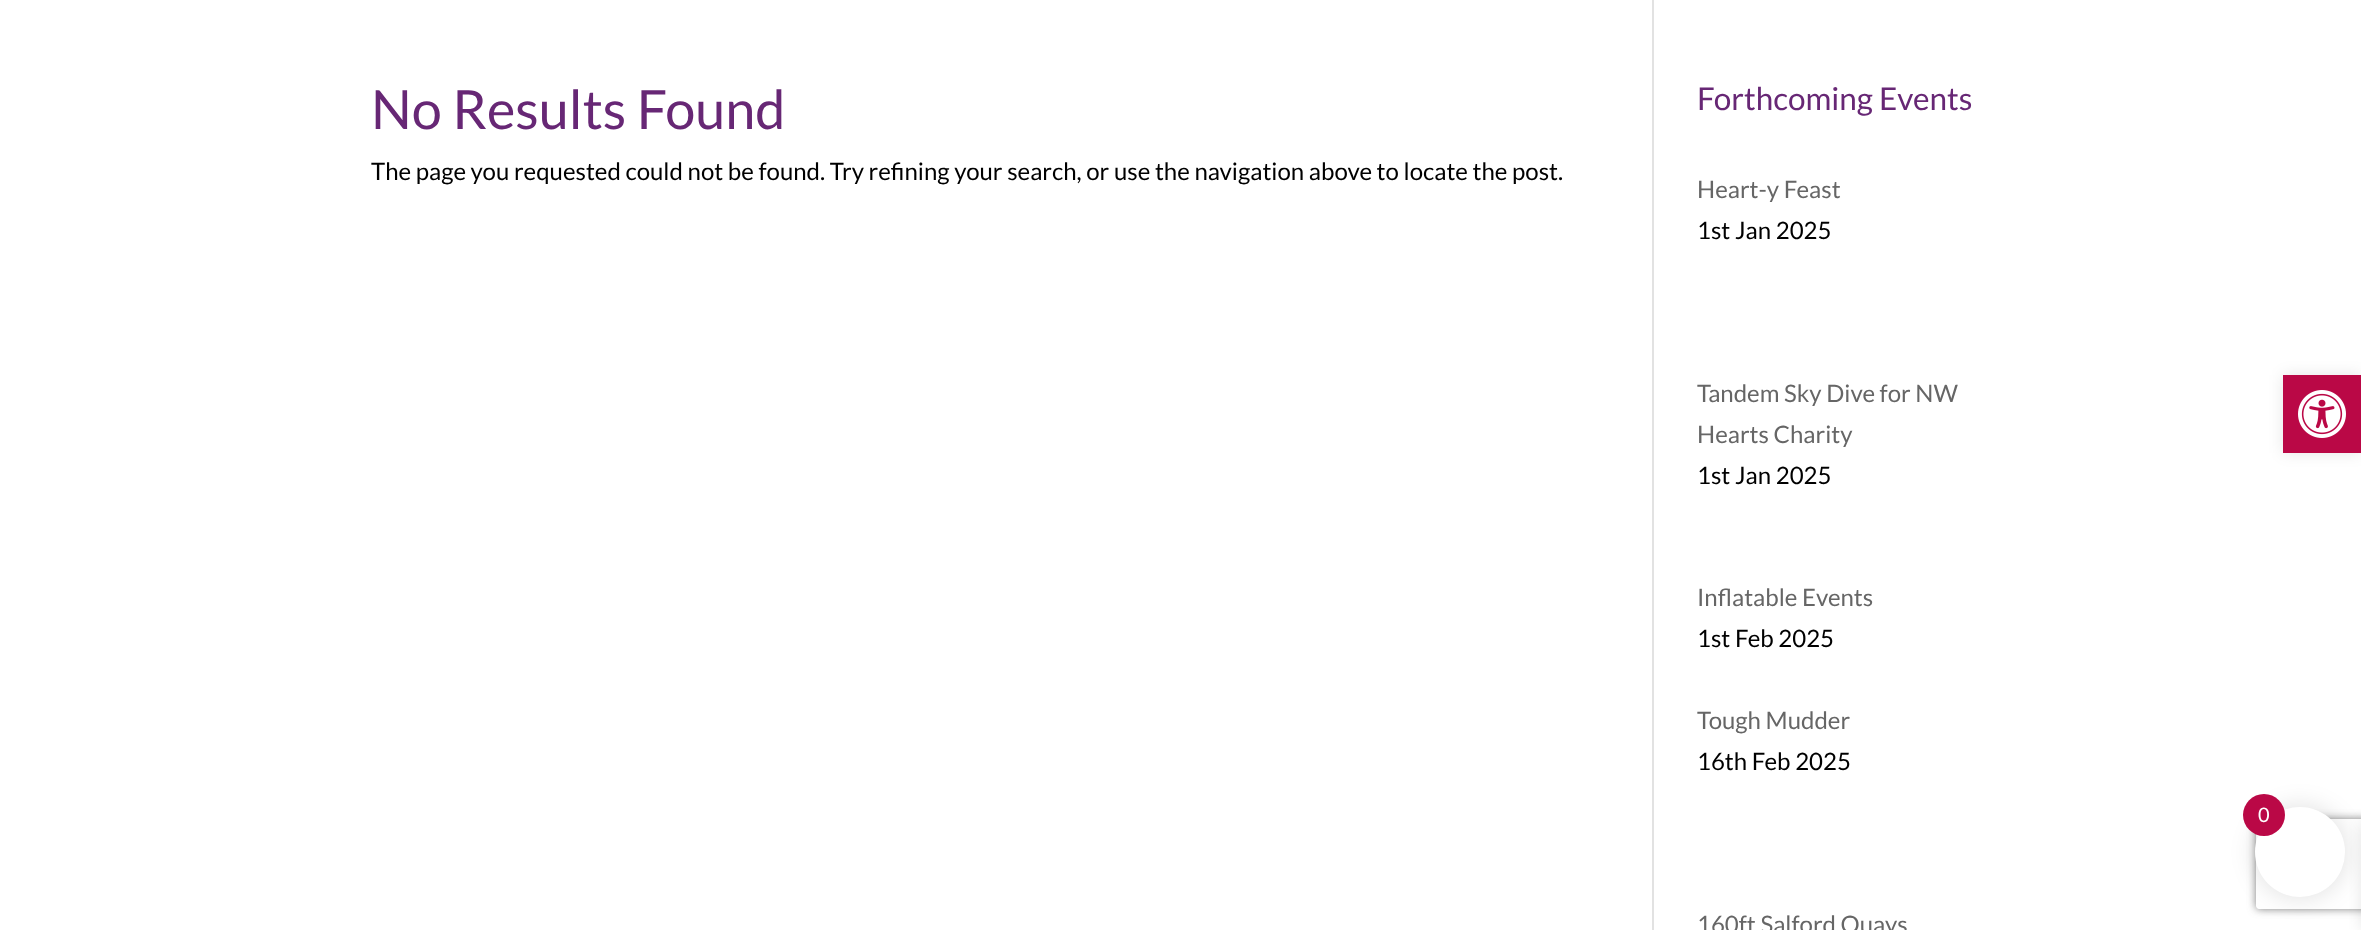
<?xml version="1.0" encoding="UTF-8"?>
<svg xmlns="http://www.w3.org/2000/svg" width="2361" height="930">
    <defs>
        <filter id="blur1" x="-50%" y="-200%" width="200%" height="500%"><feGaussianBlur stdDeviation="7.5"/></filter>
        <clipPath id="clip1"><path d="M 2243 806 H 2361 V 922 H 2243 Z M 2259 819 H 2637 C 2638.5 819 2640 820.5 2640 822 V 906 C 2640 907.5 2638.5 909 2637 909 H 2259 C 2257.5 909 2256 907.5 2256 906 V 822 C 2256 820.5 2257.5 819 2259 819 Z" clip-rule="evenodd"/></clipPath>
        <filter id="blur2" x="-50%" y="-200%" width="200%" height="500%"><feGaussianBlur stdDeviation="4"/></filter>
        <filter id="blur3" x="-50%" y="-200%" width="200%" height="500%"><feGaussianBlur stdDeviation="11"/></filter>
    </defs>
    <rect width="100%" height="100%" fill="#FFFFFF"/>
    <rect x="1652" y="0" width="2" height="930" fill="#E2E2E2"/>
    <text x="371" y="129" font-family="Lato" font-size="54" fill="#672775">No Results Found</text>
    <text x="371" y="180" font-family="Lato" font-size="24" fill="#000000">The page you requested could not be found. Try refining your search, or use the navigation above to locate the post.</text>
    <text x="1697" y="110" font-family="Lato" font-size="31.5" fill="#672775">Forthcoming Events</text>
    <text x="1697" y="198" font-family="Lato" font-size="24" fill="#666666">Heart-y Feast</text>
    <text x="1697" y="239" font-family="Lato" font-size="24" fill="#000000">1st Jan 2025</text>
    <text font-family="Lato" font-size="24" fill="#666666">
        <tspan x="1697" y="402">Tandem Sky Dive for NW</tspan>
        <tspan x="1697" y="443">Hearts Charity</tspan>
    </text>
    <text x="1697" y="484" font-family="Lato" font-size="24" fill="#000000">1st Jan 2025</text>
    <text x="1697" y="606" font-family="Lato" font-size="24" fill="#666666">Inflatable Events</text>
    <text x="1697" y="647" font-family="Lato" font-size="24" fill="#000000">1st Feb 2025</text>
    <text x="1697" y="729" font-family="Lato" font-size="24" fill="#666666">Tough Mudder</text>
    <text x="1697" y="770" font-family="Lato" font-size="24" fill="#000000">16th Feb 2025</text>
    <text x="1697" y="933" font-family="Lato" font-size="24" fill="#666666">160ft Salford Quays</text>
    <rect x="2283" y="375" width="78" height="78" fill="#000000" fill-opacity="0.1" filter="url(#blur1)"/>
    <rect x="2283" y="375" width="78" height="78" fill="#BA0846"/>
    <image x="2298" y="390" width="48" height="48" href="img_01.png"/>
    <g clip-path="url(#clip1)">
        <rect x="2256" y="819" width="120" height="90" rx="3" fill="#808080" filter="url(#blur2)"/>
    </g>
    <rect x="2252" y="804" width="96" height="96" rx="48" fill="#000000" fill-opacity="0.1" filter="url(#blur3)"/>
    <rect x="2361" y="822" width="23" height="107" fill="#000000" fill-opacity="0.1" filter="url(#blur1)"/>
    <circle cx="2300" cy="852" r="45" fill="#FFFFFF"/>
    <circle cx="2264" cy="815" r="21" fill="#BA0846"/>
    <text x="2258" y="822" font-family="Lato" font-size="20" fill="#FFFFFF">0</text>
</svg>
